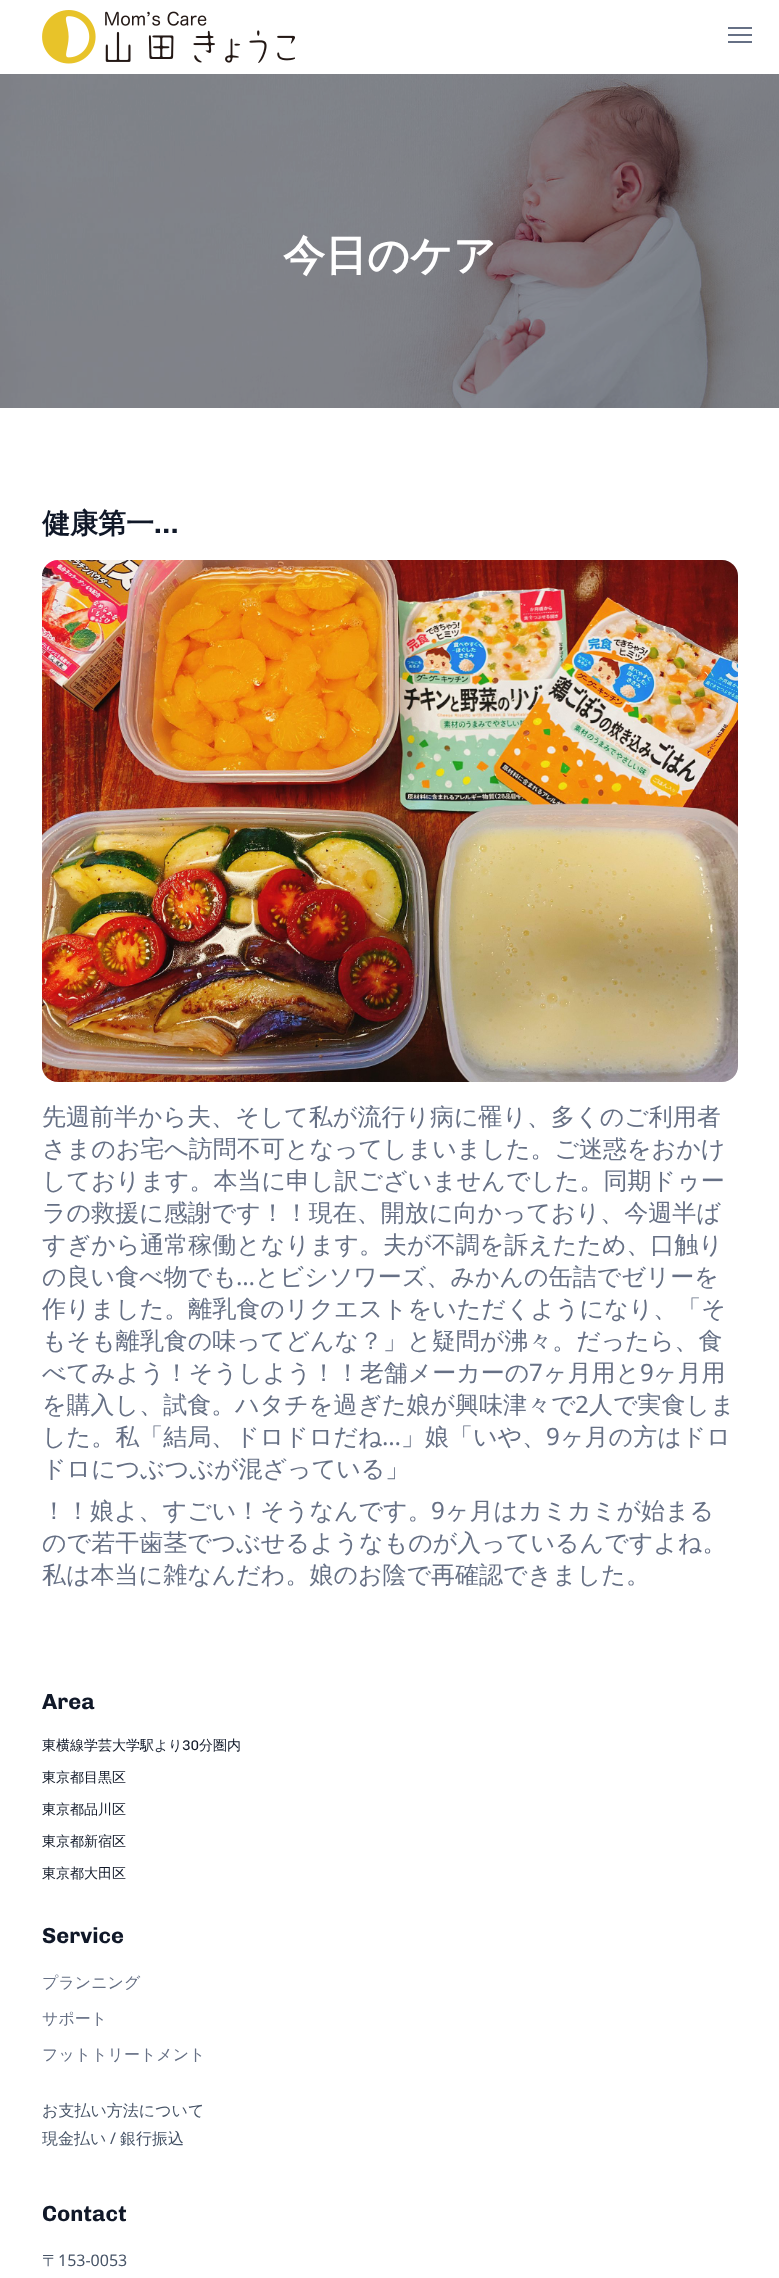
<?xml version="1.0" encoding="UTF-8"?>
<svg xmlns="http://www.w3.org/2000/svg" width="779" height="2278">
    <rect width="100%" height="100%" fill="#FFFFFF"/>
    <image x="42" y="10" width="253" height="54" href="img_01.png"/>
    <rect x="728" y="27" width="24" height="2" fill="#667085"/>
    <rect x="728" y="34" width="24" height="2" fill="#667085"/>
    <rect x="728" y="41" width="24" height="2" fill="#667085"/>
    <image x="0" y="74" width="779" height="334" href="img_02.png"/>
    <text x="283" y="270" font-family="WenQuanYi Zen Hei" font-size="42" font-weight="700" fill="#FFFFFF">今日のケア</text>
    <text x="42" y="533" font-family="WenQuanYi Zen Hei" font-size="28" font-weight="700" fill="#101828">健康第一</text>
    <text x="154" y="533" font-family="Chivo" font-size="28" font-weight="500" fill="#101828">…</text>
    <image x="42" y="560" width="696" height="522" href="img_03.png"/>
    <text font-family="WenQuanYi Zen Hei" font-size="24" font-weight="500" fill="#667085">
        <tspan x="42" y="1125">先週前半から夫、そして私が流行り病に罹り、多くのご利用者</tspan>
        <tspan x="42" y="1157">さまのお宅へ訪問不可となってしまいました。ご迷惑をおかけ</tspan>
        <tspan x="42" y="1189">しております。本当に申し訳ございませんでした。同期ドゥー</tspan>
        <tspan x="42" y="1221">ラの救援に感謝です！！現在、開放に向かっており、今週半ば</tspan>
        <tspan x="42" y="1253">すぎから通常稼働となります。夫が不調を訴えたため、口触り</tspan>
        <tspan x="42" y="1285">の良い食べ物でも</tspan>
    </text>
    <text x="236" y="1285" font-family="Noto Sans" font-size="24" fill="#667085">…</text>
    <text x="255" y="1285" font-family="WenQuanYi Zen Hei" font-size="24" font-weight="500" fill="#667085">とビシソワーズ、みかんの缶詰でゼリーを</text>
    <text font-family="WenQuanYi Zen Hei" font-size="24" font-weight="500" fill="#667085">
        <tspan x="42" y="1317">作りました。離乳食のリクエストをいただくようになり、「そ</tspan>
        <tspan x="42" y="1349">もそも離乳食の味ってどんな？」と疑問が沸々。だったら、食</tspan>
        <tspan x="42" y="1381">べてみよう！そうしよう！！老舗メーカーの</tspan>
    </text>
    <text x="529" y="1381" font-family="Noto Sans" font-size="24" fill="#667085">7</text>
    <text x="543" y="1381" font-family="WenQuanYi Zen Hei" font-size="24" font-weight="500" fill="#667085">ヶ月用と</text>
    <text x="640" y="1381" font-family="Noto Sans" font-size="24" fill="#667085">9</text>
    <text x="653" y="1381" font-family="WenQuanYi Zen Hei" font-size="24" font-weight="500" fill="#667085">ヶ月用</text>
    <text x="42" y="1413" font-family="WenQuanYi Zen Hei" font-size="24" font-weight="500" fill="#667085">を購入し、試食。ハタチを過ぎた娘が興味津々で</text>
    <text x="575" y="1413" font-family="Noto Sans" font-size="24" fill="#667085">2</text>
    <text x="589" y="1413" font-family="WenQuanYi Zen Hei" font-size="24" font-weight="500" fill="#667085">人で実食しま</text>
    <text x="42" y="1445" font-family="WenQuanYi Zen Hei" font-size="24" font-weight="500" fill="#667085">した。私「結局、ドロドロだね</text>
    <text x="382" y="1445" font-family="Noto Sans" font-size="24" fill="#667085">…</text>
    <text x="401" y="1445" font-family="WenQuanYi Zen Hei" font-size="24" font-weight="500" fill="#667085">」娘「いや、</text>
    <text x="546" y="1445" font-family="Noto Sans" font-size="24" fill="#667085">9</text>
    <text x="560" y="1445" font-family="WenQuanYi Zen Hei" font-size="24" font-weight="500" fill="#667085">ヶ月の方はドロ</text>
    <text font-family="WenQuanYi Zen Hei" font-size="24" font-weight="500" fill="#667085">
        <tspan x="42" y="1477">ドロにつぶつぶが混ざっている」</tspan>
        <tspan x="42" y="1519">！！娘よ、すごい！そうなんです。</tspan>
    </text>
    <text x="431" y="1519" font-family="Noto Sans" font-size="24" fill="#667085">9</text>
    <text x="445" y="1519" font-family="WenQuanYi Zen Hei" font-size="24" font-weight="500" fill="#667085">ヶ月はカミカミが始まる</text>
    <text font-family="WenQuanYi Zen Hei" font-size="24" font-weight="500" fill="#667085">
        <tspan x="42" y="1551">ので若干歯茎でつぶせるようなものが入っているんですよね。</tspan>
        <tspan x="42" y="1583">私は本当に雑なんだわ。娘のお陰で再確認できました。</tspan>
    </text>
    <text x="42" y="1709" font-family="Chivo" font-size="22" font-weight="500" fill="#101828">Area</text>
    <text x="42" y="1750" font-family="WenQuanYi Zen Hei" font-size="14" font-weight="500" fill="#101828">東横線学芸大学駅より</text>
    <text x="182" y="1750" font-family="'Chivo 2'" font-size="14" font-weight="500" fill="#101828">30</text>
    <text x="199" y="1750" font-family="WenQuanYi Zen Hei" font-size="14" font-weight="500" fill="#101828">分圏内</text>
    <text x="42" y="1782" font-family="WenQuanYi Zen Hei" font-size="14" font-weight="500" fill="#101828">東京都目黒区</text>
    <text x="42" y="1814" font-family="WenQuanYi Zen Hei" font-size="14" font-weight="500" fill="#101828">東京都品川区</text>
    <text x="42" y="1846" font-family="WenQuanYi Zen Hei" font-size="14" font-weight="500" fill="#101828">東京都新宿区</text>
    <text x="42" y="1878" font-family="WenQuanYi Zen Hei" font-size="14" font-weight="500" fill="#101828">東京都大田区</text>
    <text x="42" y="1943" font-family="Chivo" font-size="22" font-weight="500" fill="#101828">Service</text>
    <text x="42" y="1988" font-family="WenQuanYi Zen Hei" font-size="16" font-weight="500" fill="#667085">プランニング</text>
    <text x="42" y="2024" font-family="WenQuanYi Zen Hei" font-size="16" font-weight="500" fill="#667085">サポート</text>
    <text x="42" y="2060" font-family="WenQuanYi Zen Hei" font-size="16" font-weight="500" fill="#667085">フットトリートメント</text>
    <text font-family="WenQuanYi Zen Hei" font-size="16" font-weight="500" fill="#475467">
        <tspan x="42" y="2116">お支払い方法について</tspan>
        <tspan x="42" y="2144">現金払い</tspan>
    </text>
    <text x="110" y="2144" font-family="Noto Sans" font-size="16" fill="#475467">/</text>
    <text x="120" y="2144" font-family="WenQuanYi Zen Hei" font-size="16" font-weight="500" fill="#475467">銀行振込</text>
    <text x="42" y="2221" font-family="Chivo" font-size="22" font-weight="500" fill="#101828">Contact</text>
    <text x="42" y="2266" font-family="WenQuanYi Zen Hei" font-size="16" font-weight="500" fill="#475467">〒</text>
    <text x="58" y="2266" font-family="Noto Sans" font-size="16" fill="#475467">153-0053</text>
</svg>
